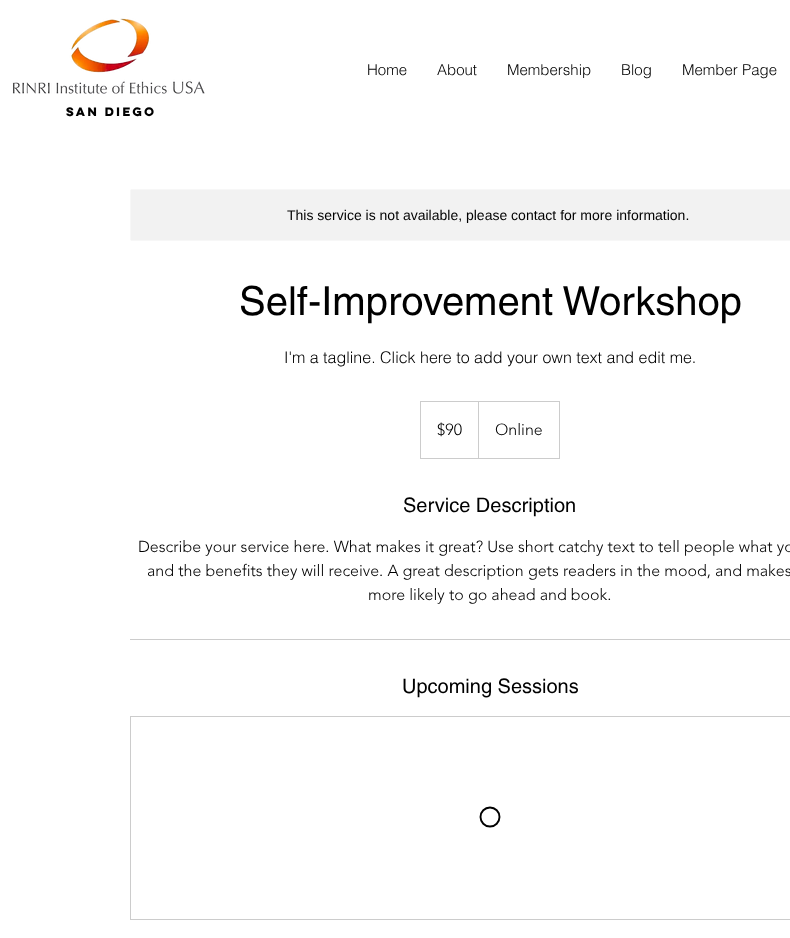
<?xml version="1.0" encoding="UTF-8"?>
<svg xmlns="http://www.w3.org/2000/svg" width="790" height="938">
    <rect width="100%" height="100%" fill="#FFFFFF"/>
    <image x="12" y="18" width="193" height="76" href="img_01.png"/>
    <text x="367" y="75" font-family="helvetica" font-size="15" font-weight="300" fill="#000000">Home</text>
    <text x="437" y="75" font-family="helvetica" font-size="15" font-weight="300" fill="#000000">About</text>
    <text x="507" y="75" font-family="helvetica" font-size="15" font-weight="300" fill="#000000">Membership</text>
    <text x="621" y="75" font-family="helvetica" font-size="15" font-weight="300" fill="#000000">Blog</text>
    <text x="682" y="75" font-family="helvetica" font-size="15" font-weight="300" fill="#000000">Member Page</text>
    <text x="66" y="116" font-family="'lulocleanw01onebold'" font-size="11" font-weight="700" fill="#000000">San Diego</text>
    <rect x="130.5" y="189.5" width="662" height="51" rx="1.5" fill="#F2F2F2" stroke="#F7F7F7"/>
    <text x="287" y="220" font-family="Liberation Sans" font-size="14" fill="#000000">This service is not available, please contact for more information.</text>
    <text x="239" y="315" font-family="helvetica" font-size="40" fill="#000000">Self-Improvement Workshop</text>
    <text x="284" y="363" font-family="helvetica" font-size="16" font-weight="300" fill="#000000">I'm a tagline. Click here to add your own text and edit me.</text>
    <rect x="420.5" y="401.5" width="139" height="57" fill="none" stroke="#CCCCCC"/>
    <text x="437" y="435" font-family="'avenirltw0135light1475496'" font-size="16" font-weight="300" fill="#000000">$90</text>
    <path d="M 478 458 V 401 L 479 402 V 458 Z" fill="#CCCCCC"/>
    <text x="495" y="435" font-family="'avenirltw0135light1475496'" font-size="16" font-weight="300" fill="#000000">Online</text>
    <text x="403" y="512" font-family="helvetica" font-size="20" fill="#000000">Service Description</text>
    <text x="138" y="552" font-family="'avenirltw0135light1475496'" font-size="16" font-weight="300" fill="#000000">Describe your service here. What makes it great? Use short catchy text to tell people what yo</text>
    <text x="147" y="576" font-family="'avenirltw0135light1475496'" font-size="16" font-weight="300" fill="#000000">and the benefits they will receive. A great description gets readers in the mood, and makes</text>
    <text x="368" y="600" font-family="'avenirltw0135light1475496'" font-size="16" font-weight="300" fill="#000000">more likely to go ahead and book.</text>
    <rect x="130" y="639" width="660" height="1" fill="#CCCCCC"/>
    <text x="402" y="693" font-family="helvetica" font-size="20" fill="#000000">Upcoming Sessions</text>
    <rect x="130.5" y="716.5" width="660" height="203" fill="none" stroke="#CCCCCC"/>
    <circle cx="490" cy="817" r="9.5" fill="none" stroke="#000000" stroke-width="1.9"/>
</svg>
